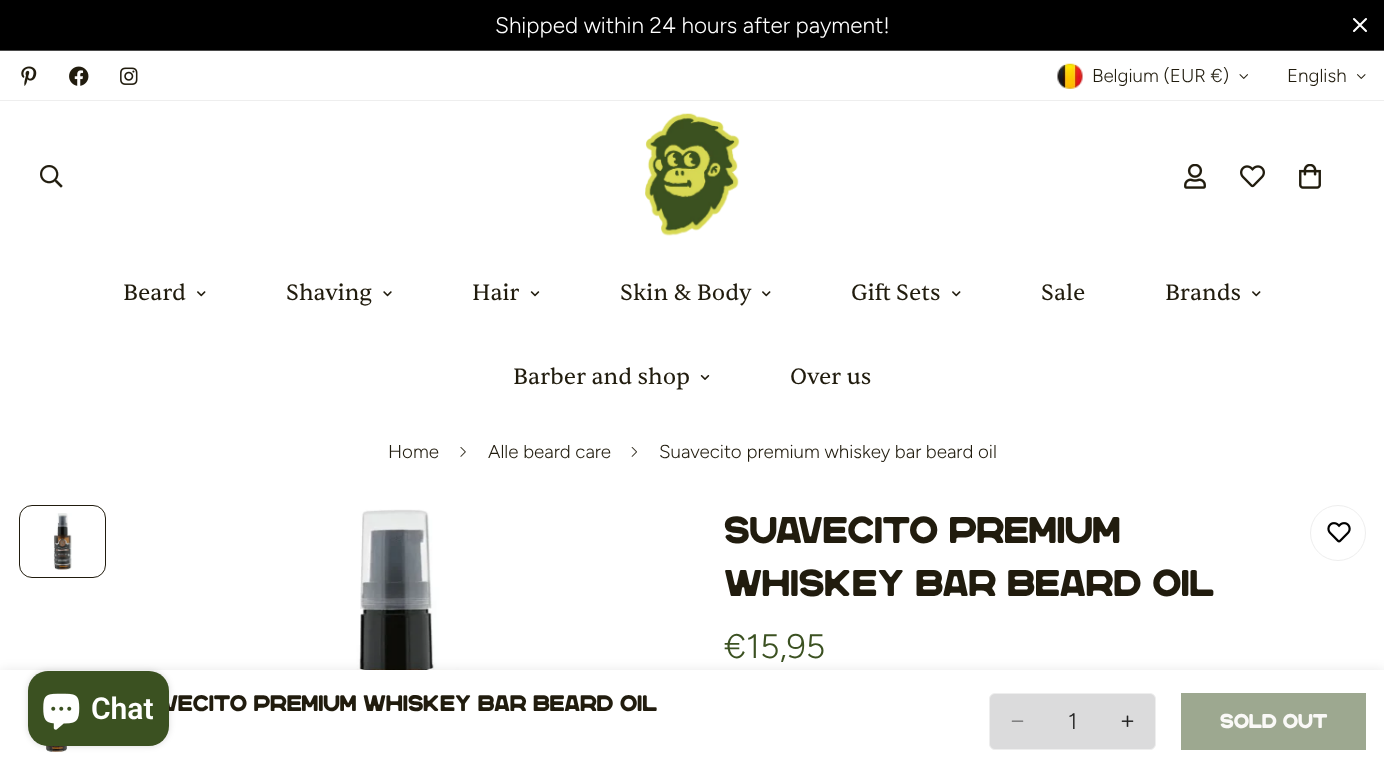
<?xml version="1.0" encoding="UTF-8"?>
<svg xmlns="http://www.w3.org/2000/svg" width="1384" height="772">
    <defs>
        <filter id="blur1" x="-50%" y="-200%" width="200%" height="500%"><feGaussianBlur stdDeviation="6"/></filter>
        <filter id="blur2" x="-50%" y="-200%" width="200%" height="500%"><feGaussianBlur stdDeviation="3"/></filter>
    </defs>
    <rect width="100%" height="100%" fill="#FFFFFF"/>
    <rect x="0" y="0" width="1384" height="50" fill="#000000"/>
    <rect x="0" y="50" width="1384" height="1" fill="#4B4B4B"/>
    <text x="495" y="33" font-family="Figtree" font-size="22.5" font-weight="300" fill="#FFFFFF">Shipped within 24 hours after payment!</text>
    <path d="M 1354 31 L 1366 19 M 1354 19 L 1366 31" fill="none" stroke="#FFFFFF" stroke-width="2.1" stroke-linecap="round" stroke-linejoin="round"/>
    <rect x="0" y="100" width="1384" height="1" fill="#EEEEEE"/>
    <image x="21" y="66" width="16" height="20" href="img_01.png"/>
    <image x="69" y="66" width="20" height="20" href="img_02.png"/>
    <image x="120" y="67" width="18" height="18" href="img_03.png"/>
    <image x="1057" y="63" width="26" height="26" href="img_04.png"/>
    <text x="1092" y="82" font-family="Figtree" font-size="18.75" font-weight="300" fill="#211C0E">Belgium (EUR €)</text>
    <image x="1239" y="74" width="9" height="5" href="img_05.png"/>
    <text x="1287" y="82" font-family="Figtree" font-size="18.75" font-weight="300" fill="#211C0E">English</text>
    <image x="1357" y="74" width="9" height="5" href="img_06.png"/>
    <image x="40" y="165" width="23" height="23" href="img_07.png"/>
    <image x="645" y="113" width="95" height="123" href="img_08.png"/>
    <image x="1184" y="164" width="22" height="25" href="img_09.png"/>
    <image x="1240" y="165" width="25" height="23" href="img_10.png"/>
    <image x="1299" y="164" width="22" height="25" href="img_11.png"/>
    <text x="123" y="300" font-family="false" font-size="22.5" fill="#211C0E">Beard</text>
    <image x="197" y="291" width="9" height="6" href="img_12.png"/>
    <text x="286" y="300" font-family="false" font-size="22.5" fill="#211C0E">Shaving</text>
    <image x="383" y="291" width="9" height="6" href="img_13.png"/>
    <text x="472" y="300" font-family="false" font-size="22.5" fill="#211C0E">Hair</text>
    <image x="530" y="291" width="10" height="6" href="img_14.png"/>
    <text x="620" y="300" font-family="false" font-size="22.5" fill="#211C0E">Skin &amp; Body</text>
    <image x="762" y="291" width="9" height="6" href="img_12.png"/>
    <text x="851" y="300" font-family="false" font-size="22.5" fill="#211C0E">Gift Sets</text>
    <image x="952" y="291" width="9" height="6" href="img_12.png"/>
    <text x="1041" y="300" font-family="false" font-size="22.5" fill="#211C0E">Sale</text>
    <text x="1165" y="300" font-family="false" font-size="22.5" fill="#211C0E">Brands</text>
    <image x="1252" y="291" width="9" height="6" href="img_12.png"/>
    <text x="513" y="384" font-family="false" font-size="22.5" fill="#211C0E">Barber and shop</text>
    <image x="700" y="375" width="10" height="5" href="img_15.png"/>
    <text x="790" y="384" font-family="false" font-size="22.5" fill="#211C0E">Over us</text>
    <image x="335" y="509" width="124" height="161" href="img_20.png"/>
    <rect x="0" y="670" width="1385" height="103" fill="#000000" fill-opacity="0.09" filter="url(#blur1)"/>
    <rect x="0" y="670" width="1384" height="102" fill="#FFFFFF"/>
    <image x="45" y="745" width="22" height="7" href="img_22.png"/>
    <rect x="28" y="671" width="141" height="75" rx="20" fill="#000000" fill-opacity="0.15" filter="url(#blur2)"/>
    <text x="163" y="711" font-family="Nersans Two" font-size="22.5" fill="#211C0E">vecito premium whiskey bar beard oil</text>
    <rect x="28" y="671" width="141" height="75" rx="20" fill="#3B5121"/>
    <image x="43" y="693" width="37" height="37" href="img_16.png"/>
    <text x="91" y="719" font-family="Roboto" font-size="30" font-weight="600" fill="#FFFFFF">Chat</text>
    <text x="388" y="458" font-family="Figtree" font-size="18.75" font-weight="300" fill="#211C0E">Home</text>
    <image x="460" y="447" width="6" height="10" href="img_17.png"/>
    <text x="488" y="458" font-family="Figtree" font-size="18.75" font-weight="300" fill="#211C0E">Alle beard care</text>
    <image x="631" y="447" width="6" height="10" href="img_18.png"/>
    <text x="659" y="458" font-family="Figtree" font-size="18.75" font-weight="300" fill="#211C0E">Suavecito premium whiskey bar beard oil</text>
    <rect x="19.5" y="505.5" width="86" height="72" rx="12.5" fill="none" stroke="#211C0E"/>
    <image x="53" y="513" width="19" height="57" href="img_19.png"/>
    <text font-family="Nersans Two" font-size="37.5" fill="#211C0E">
        <tspan x="724" y="543">Suavecito premium</tspan>
        <tspan x="724" y="596">whiskey bar beard oil</tspan>
    </text>
    <circle cx="1338" cy="533" r="27.5" fill="none" stroke="#EEEEEE"/>
    <image x="1327" y="522" width="24" height="21" href="img_21.png"/>
    <text x="724" y="658" font-family="Figtree" font-size="34" font-weight="300" fill="#3B5121">€15,95</text>
    <rect x="989.5" y="693.5" width="166" height="56" rx="5.5" fill="#DBDBDC" stroke="#EEEEEE"/>
    <image x="1011" y="720" width="13" height="2" href="img_23.png"/>
    <text x="1068" y="729" font-family="Figtree" font-size="22.5" font-weight="300" fill="#222222">1</text>
    <image x="1121" y="715" width="13" height="12" href="img_24.png"/>
    <rect x="1181" y="693" width="185" height="57" fill="#9DA890"/>
    <text x="1220" y="728" font-family="Nersans Two" font-size="20" fill="#FAF9F7">Sold Out</text>
</svg>
